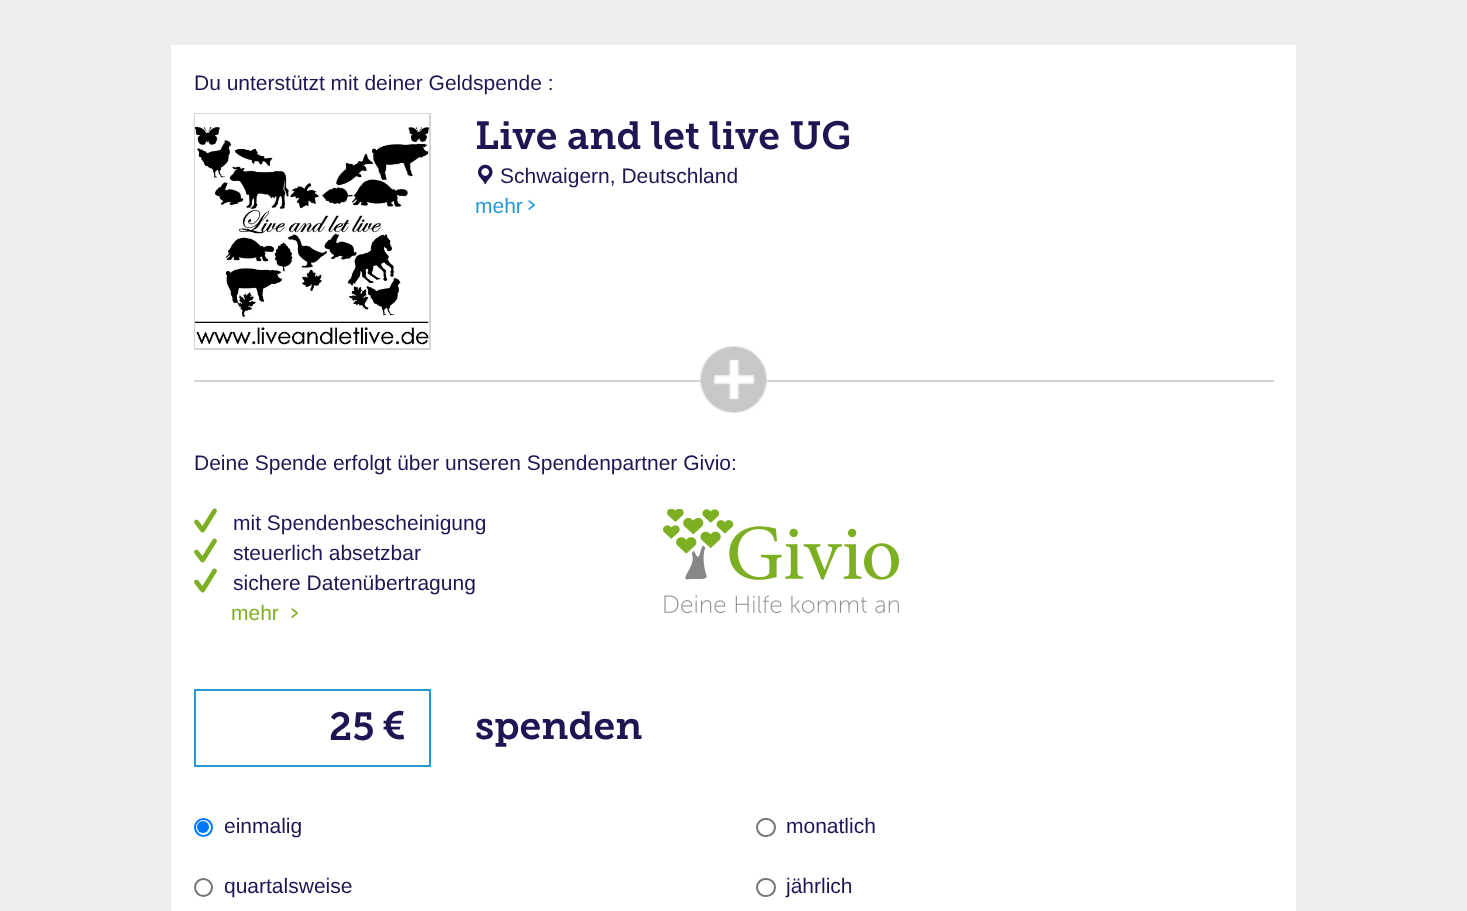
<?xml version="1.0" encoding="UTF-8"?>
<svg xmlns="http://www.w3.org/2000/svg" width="1467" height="911">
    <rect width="100%" height="100%" fill="#EDEDED"/>
    <rect x="171" y="45" width="1125" height="866" fill="#FFFFFF"/>
    <text x="194" y="90" font-family="Liberation Sans" font-size="21" fill="#211452">Du unterstützt mit deiner Geldspende :</text>
    <rect x="195" y="114" width="235" height="235" fill="none" stroke="#D5D5D5" stroke-width="2"/>
    <image x="195" y="114" width="234" height="234" href="img_01.png"/>
    <text x="475" y="149" font-family="Museo Slab" font-size="39" font-weight="600" fill="#211452">Live and let live UG</text>
    <image x="478" y="164" width="15" height="21" href="img_02.png"/>
    <text x="500" y="183" font-family="Liberation Sans" font-size="21" fill="#211452">Schwaigern, Deutschland</text>
    <text x="475" y="213" font-family="Liberation Sans" font-size="21" fill="#2699D1">mehr</text>
    <image x="528" y="199" width="7" height="12" href="img_03.png"/>
    <rect x="194" y="380" width="1080" height="2" fill="#D5D5D5"/>
    <image x="700" y="346" width="67" height="67" href="img_04.png"/>
    <text x="194" y="470" font-family="Liberation Sans" font-size="21" fill="#211452">Deine Spende erfolgt über unseren Spendenpartner Givio:</text>
    <image x="194" y="508" width="23" height="25" href="img_05.png"/>
    <text x="233" y="530" font-family="Liberation Sans" font-size="21" fill="#211452">mit Spendenbescheinigung</text>
    <image x="194" y="538" width="23" height="25" href="img_05.png"/>
    <text x="233" y="560" font-family="Liberation Sans" font-size="21" fill="#211452">steuerlich absetzbar</text>
    <image x="194" y="568" width="23" height="25" href="img_05.png"/>
    <text x="233" y="590" font-family="Liberation Sans" font-size="21" fill="#211452">sichere Datenübertragung</text>
    <text x="231" y="620" font-family="Liberation Sans" font-size="21" fill="#7DAF23">mehr</text>
    <image x="291" y="607" width="7" height="12" href="img_06.png"/>
    <image x="663" y="509" width="236" height="104" href="img_07.png"/>
    <rect x="194" y="689" width="237" height="2" fill="#2699D1"/>
    <rect x="429" y="689" width="2" height="78" fill="#2699D1"/>
    <rect x="194" y="765" width="237" height="2" fill="#2699D1"/>
    <rect x="194" y="689" width="2" height="78" fill="#2699D1"/>
    <text x="329" y="740" font-family="Museo Slab" font-size="39" font-weight="600" fill="#211452">25</text>
    <text x="382" y="739" font-family="Museo Slab" font-size="39" font-weight="600" fill="#211452">€</text>
    <text x="475" y="739" font-family="Museo Slab" font-size="39" font-weight="600" fill="#211452">spenden</text>
    <circle cx="203.5" cy="827.5" r="8.5" fill="none" stroke="#0075FF" stroke-width="2"/>
    <circle cx="203" cy="827" r="6" fill="#0075FF"/>
    <text x="224" y="833" font-family="Liberation Sans" font-size="21" fill="#211452">einmalig</text>
    <rect x="757" y="819" width="18" height="17" rx="8.5" fill="none" stroke="#767676" stroke-width="2"/>
    <text x="786" y="833" font-family="Liberation Sans" font-size="21" fill="#211452">monatlich</text>
    <circle cx="203.5" cy="887.5" r="8.5" fill="none" stroke="#767676" stroke-width="2"/>
    <text x="224" y="893" font-family="Liberation Sans" font-size="21" fill="#211452">quartalsweise</text>
    <rect x="757" y="879" width="18" height="17" rx="8.5" fill="none" stroke="#767676" stroke-width="2"/>
    <text x="786" y="893" font-family="Liberation Sans" font-size="21" fill="#211452">jährlich</text>
</svg>
